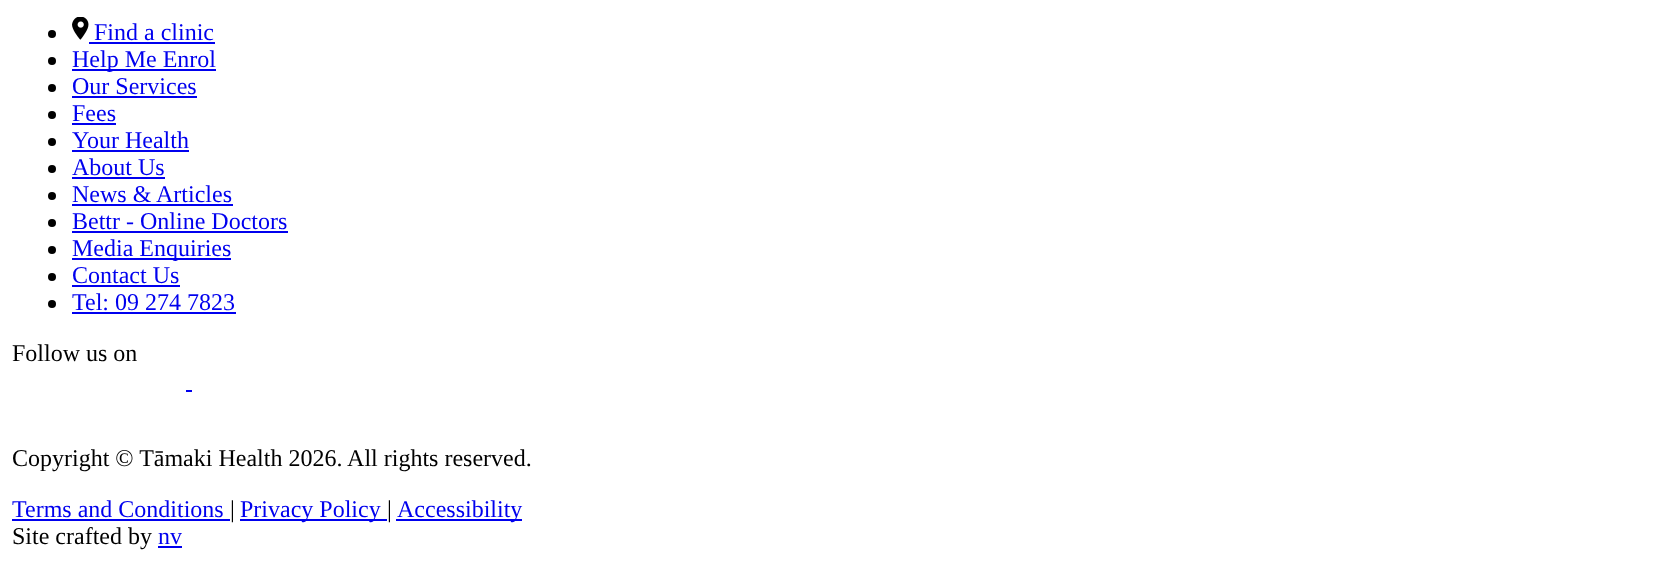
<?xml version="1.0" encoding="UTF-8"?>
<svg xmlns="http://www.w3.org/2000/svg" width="1655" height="562">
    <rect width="100%" height="100%" fill="#FFFFFF"/>
    <circle cx="52" cy="34" r="4" fill="#000000"/>
    <image x="72" y="17" width="17" height="23" href="img_01.png"/>
    <text x="94" y="40" font-family="Liberation Serif" font-size="24" fill="#0000EE">Find a clinic</text>
    <rect x="89" y="42" width="126" height="2" fill="#0000EE"/>
    <circle cx="52" cy="61" r="4" fill="#000000"/>
    <rect x="72" y="69" width="144" height="2" fill="#0000EE"/>
    <text x="72" y="67" font-family="Liberation Serif" font-size="24" fill="#0000EE">Help Me Enrol</text>
    <circle cx="52" cy="88" r="4" fill="#000000"/>
    <text x="72" y="94" font-family="Liberation Serif" font-size="24" fill="#0000EE">Our Services</text>
    <rect x="72" y="96" width="125" height="2" fill="#0000EE"/>
    <circle cx="52" cy="115" r="4" fill="#000000"/>
    <text x="72" y="121" font-family="Liberation Serif" font-size="24" fill="#0000EE">Fees</text>
    <rect x="72" y="123" width="44" height="2" fill="#0000EE"/>
    <circle cx="52" cy="142" r="4" fill="#000000"/>
    <text x="72" y="148" font-family="Liberation Serif" font-size="24" fill="#0000EE">Your Health</text>
    <rect x="72" y="150" width="117" height="2" fill="#0000EE"/>
    <circle cx="52" cy="169" r="4" fill="#000000"/>
    <text x="72" y="175" font-family="Liberation Serif" font-size="24" fill="#0000EE">About Us</text>
    <rect x="72" y="177" width="93" height="2" fill="#0000EE"/>
    <circle cx="52" cy="196" r="4" fill="#000000"/>
    <text x="72" y="202" font-family="Liberation Serif" font-size="24" fill="#0000EE">News &amp; Articles</text>
    <rect x="72" y="204" width="161" height="2" fill="#0000EE"/>
    <circle cx="52" cy="223" r="4" fill="#000000"/>
    <text x="72" y="229" font-family="Liberation Serif" font-size="24" fill="#0000EE">Bettr - Online Doctors</text>
    <rect x="72" y="231" width="216" height="2" fill="#0000EE"/>
    <circle cx="52" cy="250" r="4" fill="#000000"/>
    <rect x="72" y="258" width="159" height="2" fill="#0000EE"/>
    <text x="72" y="256" font-family="Liberation Serif" font-size="24" fill="#0000EE">Media Enquiries</text>
    <circle cx="52" cy="277" r="4" fill="#000000"/>
    <text x="72" y="283" font-family="Liberation Serif" font-size="24" fill="#0000EE">Contact Us</text>
    <rect x="72" y="285" width="108" height="2" fill="#0000EE"/>
    <circle cx="52" cy="304" r="4" fill="#000000"/>
    <text x="72" y="310" font-family="Liberation Serif" font-size="24" fill="#0000EE">Tel: 09 274 7823</text>
    <rect x="72" y="312" width="164" height="2" fill="#0000EE"/>
    <text x="12" y="361" font-family="Liberation Serif" font-size="24" fill="#000000">Follow us on</text>
    <rect x="186" y="390" width="6" height="2" fill="#0000EE"/>
    <text x="12" y="466" font-family="Liberation Serif" font-size="24" fill="#000000">Copyright © Tāmaki Health 2026. All rights reserved.</text>
    <text x="12" y="517" font-family="Liberation Serif" font-size="24" fill="#0000EE">Terms and Conditions</text>
    <text x="230" y="517" font-family="Liberation Serif" font-size="24" fill="#000000">|</text>
    <rect x="12" y="519" width="218" height="2" fill="#0000EE"/>
    <rect x="240" y="519" width="147" height="2" fill="#0000EE"/>
    <text x="240" y="517" font-family="Liberation Serif" font-size="24" fill="#0000EE">Privacy Policy</text>
    <text x="387" y="517" font-family="Liberation Serif" font-size="24" fill="#000000">|</text>
    <rect x="396" y="519" width="126" height="2" fill="#0000EE"/>
    <text x="397" y="517" font-family="Liberation Serif" font-size="24" fill="#0000EE">Accessibility</text>
    <text x="12" y="544" font-family="Liberation Serif" font-size="24" fill="#000000">Site crafted by</text>
    <text x="158" y="544" font-family="Liberation Serif" font-size="24" fill="#0000EE">nv</text>
    <rect x="158" y="546" width="24" height="2" fill="#0000EE"/>
</svg>
